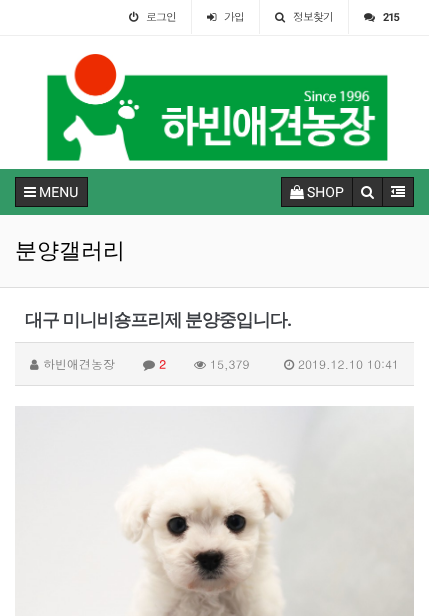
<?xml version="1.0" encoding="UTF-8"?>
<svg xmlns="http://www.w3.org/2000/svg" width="429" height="616">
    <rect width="100%" height="100%" fill="#FFFFFF"/>
    <rect x="0" y="35" width="429" height="1" fill="#EEEEEE"/>
    <rect x="191" y="0" width="1" height="34" fill="#EEEEEE"/>
    <image x="129" y="11" width="10" height="11" href="img_01.png"/>
    <text x="146" y="21" font-family="Dotum" font-size="11" letter-spacing="-1" fill="#333333">로그인</text>
    <rect x="259" y="0" width="1" height="34" fill="#EEEEEE"/>
    <image x="207" y="13" width="10" height="8" href="img_02.png"/>
    <text x="224" y="21" font-family="Dotum" font-size="11" letter-spacing="-1" fill="#333333">가입</text>
    <rect x="348" y="0" width="1" height="34" fill="#EEEEEE"/>
    <image x="275" y="12" width="11" height="11" href="img_03.png"/>
    <text x="293" y="21" font-family="Dotum" font-size="11" letter-spacing="-1" fill="#333333">정보찾기</text>
    <image x="364" y="13" width="11" height="9" href="img_04.png"/>
    <text x="383" y="21" font-family="Roboto" font-size="11" font-weight="700" letter-spacing="-1" fill="#333333">215</text>
    <image x="46" y="54" width="342" height="107" href="img_05.png"/>
    <rect x="0" y="169" width="429" height="46" fill="#339966"/>
    <rect x="15.5" y="177.5" width="72" height="29" fill="#333333" stroke="#111111"/>
    <image x="24" y="187" width="12" height="10" href="img_06.png"/>
    <text x="39" y="197" font-family="Roboto" font-size="14" fill="#FFFFFF">MENU</text>
    <rect x="281.5" y="177.5" width="71" height="29" fill="#333333" stroke="#111111"/>
    <image x="290" y="185" width="14" height="14" href="img_07.png"/>
    <text x="307" y="197" font-family="Roboto" font-size="14" fill="#FFFFFF">SHOP</text>
    <rect x="352.5" y="177.5" width="30" height="29" fill="#333333" stroke="#111111"/>
    <image x="361" y="186" width="13" height="13" href="img_08.png"/>
    <rect x="382.5" y="177.5" width="31" height="29" fill="#333333" stroke="#111111"/>
    <image x="391" y="186" width="14" height="11" href="img_09.png"/>
    <rect x="0" y="215" width="429" height="72" fill="#FAFAFA"/>
    <rect x="0" y="287" width="429" height="1" fill="#DDDDDD"/>
    <text x="15" y="258" font-family="WenQuanYi Zen Hei" font-size="22" font-weight="500" fill="#000000">분양갤러리</text>
    <text x="25" y="326" word-spacing="-1" font-family="WenQuanYi Zen Hei" font-size="18" font-weight="700" letter-spacing="-1" fill="#3B3E43">대구 미니비숑프리제 분양중입니다</text>
    <text x="287" y="326" font-family="Roboto" font-size="18" font-weight="700" letter-spacing="-1" fill="#3B3E43">.</text>
    <rect x="15" y="342" width="399" height="1" fill="#DDDDDD"/>
    <rect x="15" y="343" width="399" height="42" fill="#F5F5F5"/>
    <rect x="15" y="385" width="399" height="1" fill="#DDDDDD"/>
    <image x="30" y="359" width="9" height="11" href="img_10.png"/>
    <text x="43" y="369" font-family="Dotum" font-size="12" fill="#777777">하빈애견농장</text>
    <image x="143" y="360" width="12" height="11" href="img_11.png"/>
    <text x="159" y="369" font-family="Dotum" font-size="12" font-weight="700" fill="#E91B23">2</text>
    <image x="194" y="361" width="12" height="8" href="img_12.png"/>
    <text x="210" y="369" font-family="Dotum" font-size="12" fill="#777777">15,379</text>
    <image x="284" y="359" width="11" height="11" href="img_13.png"/>
    <text x="298" y="369" font-family="Dotum" font-size="12" fill="#777777">2019.12.10 10:41</text>
    <image x="15" y="406" width="399" height="210" href="img_14.png"/>
</svg>
